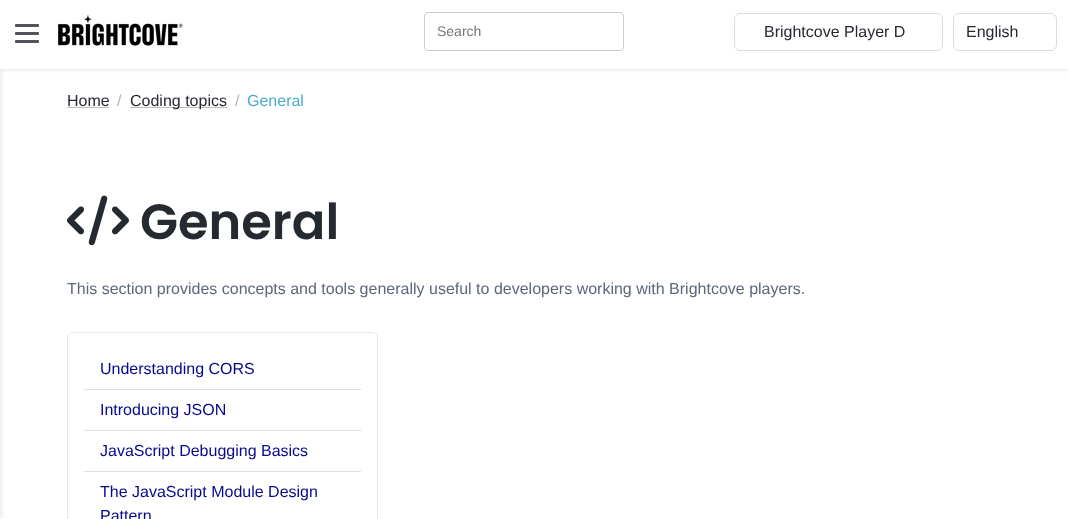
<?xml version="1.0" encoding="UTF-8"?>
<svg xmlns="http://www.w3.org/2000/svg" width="1069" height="519">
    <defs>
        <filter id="blur1" x="-50%" y="-200%" width="200%" height="500%"><feGaussianBlur stdDeviation="2"/></filter>
        <filter id="blur2" x="-50%" y="-200%" width="200%" height="500%"><feGaussianBlur stdDeviation="2.5"/></filter>
    </defs>
    <rect width="100%" height="100%" fill="#FFFFFF"/>
    <rect x="0" y="1" width="1069" height="69" fill="#000000" fill-opacity="0.1" filter="url(#blur1)"/>
    <rect x="-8" y="69" width="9" height="450" fill="#000000" fill-opacity="0.1" filter="url(#blur2)"/>
    <rect x="0" y="0" width="1069" height="69" fill="#FFFFFF"/>
    <rect x="15" y="24" width="24" height="3" rx="1" fill="#515459"/>
    <rect x="15" y="32" width="24" height="3" rx="1" fill="#515459"/>
    <rect x="15" y="40" width="24" height="3" rx="1" fill="#515459"/>
    <image x="58" y="15" width="125" height="31" href="img_01.png"/>
    <rect x="424.5" y="12.5" width="199" height="38" rx="3.5" fill="none" stroke="#CCCCCC"/>
    <text x="437" y="36" font-family="Liberation Sans" font-size="14" fill="#757575">Search</text>
    <rect x="734.5" y="13.5" width="208" height="37" rx="5.5" fill="none" stroke="#D9DCE1"/>
    <text x="764" y="37" font-family="Liberation Sans" font-size="16" fill="#252930">Brightcove Player D</text>
    <rect x="953.5" y="13.5" width="103" height="37" rx="5.5" fill="none" stroke="#D9DCE1"/>
    <text x="966" y="37" font-family="Liberation Sans" font-size="16" fill="#252930">English</text>
    <text x="67" y="106" font-family="Liberation Sans" font-size="16" fill="#252930">Home</text>
    <rect x="67" y="107" width="42" height="1" fill="#BEBFC1"/>
    <text x="117" y="106" font-family="Liberation Sans" font-size="16" fill="#ADB4C0">/</text>
    <rect x="130" y="107" width="97" height="1" fill="#BEBFC1"/>
    <text x="130" y="106" font-family="Liberation Sans" font-size="16" fill="#252930">Coding topics</text>
    <text x="235" y="106" font-family="Liberation Sans" font-size="16" fill="#ADB4C0">/</text>
    <text x="247" y="106" font-family="Liberation Sans" font-size="16" fill="#4EA9D1">General</text>
    <image x="67" y="195" width="62" height="51" href="img_02.png"/>
    <text x="140" y="239" font-family="Poppins" font-size="49.5" font-weight="600" fill="#252930">General</text>
    <text x="67" y="294" font-family="Liberation Sans" font-size="16" fill="#5D6778">This section provides concepts and tools generally useful to developers working with Brightcove players.</text>
    <rect x="67.5" y="332.5" width="310" height="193" rx="5.5" fill="none" stroke="#E7E9ED"/>
    <rect x="84" y="389" width="277" height="1" fill="#DFDFDF"/>
    <text x="100" y="374" font-family="Liberation Sans" font-size="16" fill="#08088C">Understanding CORS</text>
    <rect x="84" y="430" width="277" height="1" fill="#DFDFDF"/>
    <text x="100" y="415" font-family="Liberation Sans" font-size="16" fill="#08088C">Introducing JSON</text>
    <rect x="84" y="471" width="277" height="1" fill="#DFDFDF"/>
    <text x="100" y="456" font-family="Liberation Sans" font-size="16" fill="#08088C">JavaScript Debugging Basics</text>
    <text font-family="Liberation Sans" font-size="16" fill="#08088C">
        <tspan x="100" y="497">The JavaScript Module Design</tspan>
        <tspan x="100" y="521">Pattern</tspan>
    </text>
</svg>
